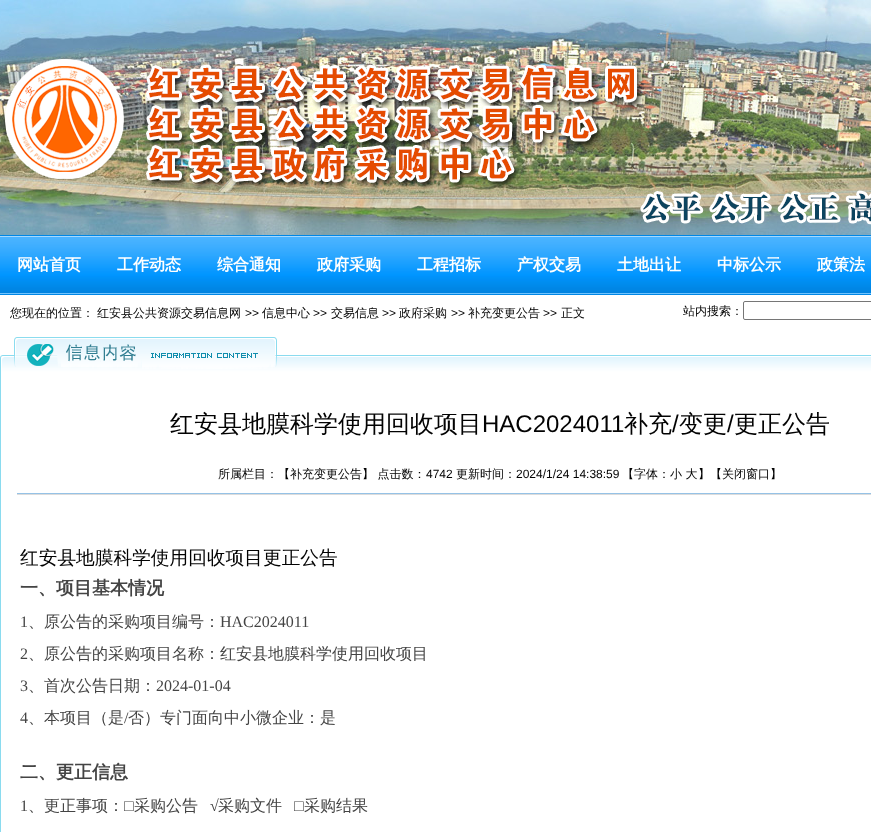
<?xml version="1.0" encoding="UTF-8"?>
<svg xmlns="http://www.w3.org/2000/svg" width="871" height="832">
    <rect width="100%" height="100%" fill="#FFFFFF"/>
    <image x="0" y="0" width="871" height="235" href="img_01.png"/>
    <image x="5" y="59" width="866" height="166" href="img_02.png"/>
    <image x="0" y="235" width="871" height="60" href="img_03.png"/>
    <text x="17" y="270" font-family="WenQuanYi Zen Hei" font-size="16" font-weight="700" fill="#FFFFFF">网站首页</text>
    <text x="117" y="270" font-family="WenQuanYi Zen Hei" font-size="16" font-weight="700" fill="#FFFFFF">工作动态</text>
    <text x="217" y="270" font-family="WenQuanYi Zen Hei" font-size="16" font-weight="700" fill="#FFFFFF">综合通知</text>
    <text x="317" y="270" font-family="WenQuanYi Zen Hei" font-size="16" font-weight="700" fill="#FFFFFF">政府采购</text>
    <text x="417" y="270" font-family="WenQuanYi Zen Hei" font-size="16" font-weight="700" fill="#FFFFFF">工程招标</text>
    <text x="517" y="270" font-family="WenQuanYi Zen Hei" font-size="16" font-weight="700" fill="#FFFFFF">产权交易</text>
    <text x="617" y="270" font-family="WenQuanYi Zen Hei" font-size="16" font-weight="700" fill="#FFFFFF">土地出让</text>
    <text x="717" y="270" font-family="WenQuanYi Zen Hei" font-size="16" font-weight="700" fill="#FFFFFF">中标公示</text>
    <text x="817" y="270" font-family="WenQuanYi Zen Hei" font-size="16" font-weight="700" fill="#FFFFFF">政策法</text>
    <text x="10" y="317" font-family="WenQuanYi Zen Hei" font-size="12" font-weight="500" fill="#020202">您现在的位置：</text>
    <text x="97" y="317" font-family="WenQuanYi Zen Hei" font-size="12" font-weight="500" fill="#020202">红安县公共资源交易信息网</text>
    <text x="245" y="317" font-family="Liberation Sans" font-size="12" fill="#020202">&gt;&gt;</text>
    <text x="262" y="317" font-family="WenQuanYi Zen Hei" font-size="12" font-weight="500" fill="#020202">信息中心</text>
    <text x="313" y="317" font-family="Liberation Sans" font-size="12" fill="#020202">&gt;&gt;</text>
    <text x="331" y="317" font-family="WenQuanYi Zen Hei" font-size="12" font-weight="500" fill="#020202">交易信息</text>
    <text x="382" y="317" font-family="Liberation Sans" font-size="12" fill="#020202">&gt;&gt;</text>
    <text x="399" y="317" font-family="WenQuanYi Zen Hei" font-size="12" font-weight="500" fill="#020202">政府采购</text>
    <text x="451" y="317" font-family="Liberation Sans" font-size="12" fill="#020202">&gt;&gt;</text>
    <text x="468" y="317" font-family="WenQuanYi Zen Hei" font-size="12" font-weight="500" fill="#020202">补充变更公告</text>
    <text x="543" y="317" font-family="Liberation Sans" font-size="12" fill="#020202">&gt;&gt;</text>
    <text x="561" y="317" font-family="WenQuanYi Zen Hei" font-size="12" font-weight="500" fill="#020202">正文</text>
    <text x="683" y="315" font-family="WenQuanYi Zen Hei" font-size="12" font-weight="500" fill="#020202">站内搜索：</text>
    <rect x="743.5" y="301.5" width="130" height="18" rx="1.5" fill="none" stroke="#767676"/>
    <image x="0" y="355" width="871" height="18" href="img_04.png"/>
    <image x="14" y="337" width="263" height="32" href="img_05.png"/>
    <rect x="0" y="373" width="1" height="459" fill="#8ADBEF"/>
    <text x="170" y="432" font-family="WenQuanYi Zen Hei" font-size="24" font-weight="500" fill="#020202">红安县地膜科学使用回收项目</text>
    <text x="482" y="432" font-family="Liberation Sans" font-size="24" fill="#020202">HAC2024011</text>
    <text x="624" y="432" font-family="WenQuanYi Zen Hei" font-size="24" font-weight="500" fill="#020202">补充</text>
    <text x="672" y="432" font-family="Liberation Sans" font-size="24" fill="#020202">/</text>
    <text x="679" y="432" font-family="WenQuanYi Zen Hei" font-size="24" font-weight="500" fill="#020202">变更</text>
    <text x="727" y="432" font-family="Liberation Sans" font-size="24" fill="#020202">/</text>
    <text x="734" y="432" font-family="WenQuanYi Zen Hei" font-size="24" font-weight="500" fill="#020202">更正公告</text>
    <text x="218" y="478" font-family="WenQuanYi Zen Hei" font-size="12" font-weight="500" fill="#020202">所属栏目：【补充变更公告】 点击数：</text>
    <text x="426" y="478" font-family="Liberation Sans" font-size="12" fill="#020202">4742</text>
    <text x="456" y="478" font-family="WenQuanYi Zen Hei" font-size="12" font-weight="500" fill="#020202">更新时间：</text>
    <text x="516" y="478" font-family="Liberation Sans" font-size="12" fill="#020202">2024/1/24 14:38:59</text>
    <text x="622" y="478" font-family="WenQuanYi Zen Hei" font-size="12" font-weight="500" fill="#020202">【字体：</text>
    <text x="670" y="478" font-family="WenQuanYi Zen Hei" font-size="12" font-weight="500" fill="#020202">小 大</text>
    <text x="698" y="478" font-family="WenQuanYi Zen Hei" font-size="12" font-weight="500" fill="#020202">】【</text>
    <text x="722" y="478" font-family="WenQuanYi Zen Hei" font-size="12" font-weight="500" fill="#020202">关闭窗口</text>
    <text x="770" y="478" font-family="WenQuanYi Zen Hei" font-size="12" font-weight="500" fill="#020202">】</text>
    <image x="17" y="493" width="854" height="2" href="img_06.png"/>
    <text x="20" y="564" font-family="WenQuanYi Zen Hei" font-size="18.7" font-weight="500" fill="#020202">红安县地膜科学使用回收项目更正公告</text>
    <text x="20" y="594" font-family="WenQuanYi Zen Hei" font-size="18" font-weight="700" fill="#444444">一、项目基本情况</text>
    <text x="20" y="627" font-family="Liberation Serif" font-size="16" fill="#444444">1</text>
    <text x="28" y="627" font-family="WenQuanYi Zen Hei" font-size="16" font-weight="500" fill="#444444">、原公告的采购项目编号：</text>
    <text x="220" y="627" font-family="Liberation Serif" font-size="16" fill="#444444">HAC2024011</text>
    <text x="20" y="659" font-family="Liberation Serif" font-size="16" fill="#444444">2</text>
    <text x="28" y="659" font-family="WenQuanYi Zen Hei" font-size="16" font-weight="500" fill="#444444">、原公告的采购项目名称：红安县地膜科学使用回收项目</text>
    <text x="20" y="691" font-family="Liberation Serif" font-size="16" fill="#444444">3</text>
    <text x="28" y="691" font-family="WenQuanYi Zen Hei" font-size="16" font-weight="500" fill="#444444">、首次公告日期：</text>
    <text x="156" y="691" font-family="Liberation Serif" font-size="16" fill="#444444">2024-01-04</text>
    <text x="20" y="723" font-family="Liberation Serif" font-size="16" fill="#444444">4</text>
    <text x="28" y="723" font-family="WenQuanYi Zen Hei" font-size="16" font-weight="500" fill="#444444">、本项目（是</text>
    <text x="124" y="723" font-family="Liberation Serif" font-size="16" fill="#444444">/</text>
    <text x="128" y="723" font-family="WenQuanYi Zen Hei" font-size="16" font-weight="500" fill="#444444">否）专门面向中小微企业：是</text>
    <text x="20" y="778" font-family="WenQuanYi Zen Hei" font-size="18" font-weight="700" fill="#444444">二、更正信息</text>
    <text x="20" y="811" font-family="Liberation Serif" font-size="16" fill="#444444">1</text>
    <text x="28" y="811" font-family="WenQuanYi Zen Hei" font-size="16" font-weight="500" fill="#444444">、更正事项：</text>
    <text x="124" y="811" font-family="Liberation Serif" font-size="16" fill="#444444">□</text>
    <text x="134" y="811" font-family="WenQuanYi Zen Hei" font-size="16" font-weight="500" fill="#444444">采购公告</text>
    <text x="210" y="811" font-family="Liberation Serif" font-size="16" fill="#444444">√</text>
    <text x="218" y="811" font-family="WenQuanYi Zen Hei" font-size="16" font-weight="500" fill="#444444">采购文件</text>
    <text x="294" y="811" font-family="Liberation Serif" font-size="16" fill="#444444">□</text>
    <text x="304" y="811" font-family="WenQuanYi Zen Hei" font-size="16" font-weight="500" fill="#444444">采购结果</text>
</svg>
